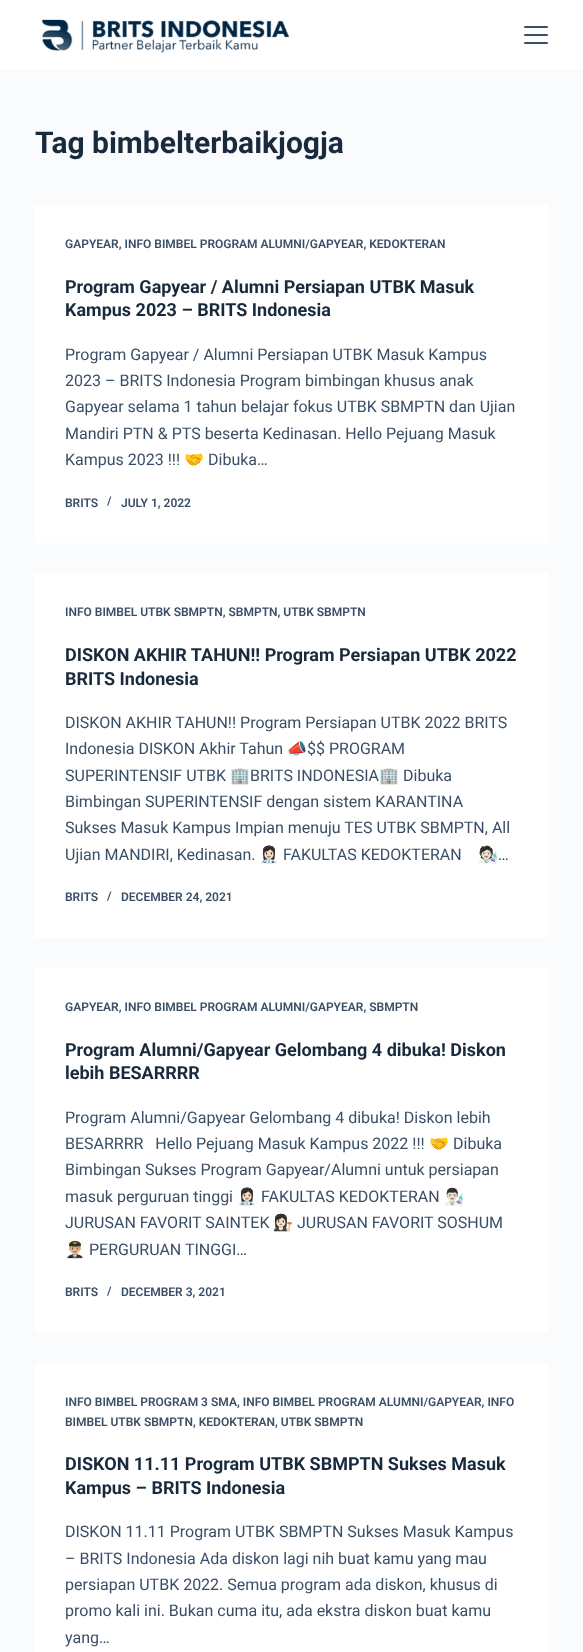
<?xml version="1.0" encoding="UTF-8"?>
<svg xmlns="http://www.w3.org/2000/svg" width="583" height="1652">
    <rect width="100%" height="100%" fill="#FAFBFC"/>
    <rect x="0" y="0" width="583" height="70" fill="#FFFFFF"/>
    <image x="42" y="19" width="248" height="34" href="img_01.png"/>
    <rect x="524" y="26" width="24" height="2" rx="1" fill="#3A4F66"/>
    <rect x="524" y="34" width="24" height="2" rx="1" fill="#3A4F66"/>
    <rect x="524" y="42" width="24" height="2" rx="1" fill="#3A4F66"/>
    <text x="35" y="153" font-family="Roboto" font-size="30" font-weight="700" fill="#192A3D">Tag bimbelterbaikjogja</text>
    <rect x="35" y="205" width="513" height="338" fill="#FFFFFF"/>
    <text x="65" y="248" font-family="Roboto" font-size="12" font-weight="600" fill="#3A4F66">GAPYEAR, INFO BIMBEL PROGRAM ALUMNI/GAPYEAR, KEDOKTERAN</text>
    <text font-family="Roboto" font-size="18" font-weight="700" fill="#192A3D">
        <tspan x="65" y="293">Program Gapyear / Alumni Persiapan UTBK Masuk</tspan>
        <tspan x="65" y="316">Kampus 2023 – BRITS Indonesia</tspan>
    </text>
    <text font-family="Roboto" font-size="16" fill="#3A4F66">
        <tspan x="65" y="360">Program Gapyear / Alumni Persiapan UTBK Masuk Kampus</tspan>
        <tspan x="65" y="386">2023 – BRITS Indonesia Program bimbingan khusus anak</tspan>
        <tspan x="65" y="412">Gapyear selama 1 tahun belajar fokus UTBK SBMPTN dan Ujian</tspan>
        <tspan x="65" y="439">Mandiri PTN &amp; PTS beserta Kedinasan. Hello Pejuang Masuk</tspan>
        <tspan x="65" y="465">Kampus 2023 !!!</tspan>
    </text>
    <text x="184" y="465" font-family="Noto Color Emoji" font-size="16" fill="#3A4F66">🤝</text>
    <text x="208" y="465" font-family="Roboto" font-size="16" fill="#3A4F66">Dibuka…</text>
    <text x="65" y="507" font-family="Roboto" font-size="12" font-weight="600" fill="#3A4F66">BRITS</text>
    <text x="107" y="505" font-family="Roboto" font-size="12" font-weight="600" fill="#3A4F66">/</text>
    <text x="121" y="507" font-family="Roboto" font-size="12" font-weight="600" fill="#3A4F66">JULY 1, 2022</text>
    <rect x="35" y="573" width="513" height="365" fill="#FFFFFF"/>
    <text x="65" y="616" font-family="Roboto" font-size="12" font-weight="600" fill="#3A4F66">INFO BIMBEL UTBK SBMPTN, SBMPTN, UTBK SBMPTN</text>
    <text font-family="Roboto" font-size="18" font-weight="700" fill="#192A3D">
        <tspan x="65" y="661">DISKON AKHIR TAHUN!! Program Persiapan UTBK 2022</tspan>
        <tspan x="65" y="685">BRITS Indonesia</tspan>
    </text>
    <text font-family="Roboto" font-size="16" fill="#3A4F66">
        <tspan x="65" y="728">DISKON AKHIR TAHUN!! Program Persiapan UTBK 2022 BRITS</tspan>
        <tspan x="65" y="754">Indonesia  DISKON Akhir Tahun</tspan>
    </text>
    <text x="287" y="754" font-family="Noto Color Emoji" font-size="16" fill="#3A4F66">📣</text>
    <text x="307" y="754" font-family="Roboto" font-size="16" fill="#3A4F66">$$ PROGRAM</text>
    <text x="65" y="781" font-family="Roboto" font-size="16" fill="#3A4F66">SUPERINTENSIF UTBK</text>
    <text x="230" y="781" font-family="Noto Color Emoji" font-size="16" fill="#3A4F66">🏢</text>
    <text x="250" y="781" font-family="Roboto" font-size="16" fill="#3A4F66">BRITS INDONESIA</text>
    <text x="379" y="781" font-family="Noto Color Emoji" font-size="16" fill="#3A4F66">🏢</text>
    <text x="403" y="781" font-family="Roboto" font-size="16" fill="#3A4F66">Dibuka</text>
    <text font-family="Roboto" font-size="16" fill="#3A4F66">
        <tspan x="65" y="807">Bimbingan SUPERINTENSIF dengan sistem KARANTINA</tspan>
        <tspan x="65" y="833">Sukses Masuk Kampus Impian menuju TES UTBK SBMPTN, All</tspan>
        <tspan x="65" y="860">Ujian MANDIRI, Kedinasan.</tspan>
    </text>
    <text x="259" y="860" font-family="Noto Color Emoji" font-size="16" fill="#3A4F66">👩🏻‍⚕️</text>
    <text x="283" y="860" font-family="Roboto" font-size="16" fill="#3A4F66">FAKULTAS KEDOKTERAN</text>
    <text x="478" y="860" font-family="Noto Color Emoji" font-size="16" fill="#3A4F66">🧑🏻‍🔬</text>
    <text x="498" y="860" font-family="Roboto" font-size="16" fill="#3A4F66">…</text>
    <text x="65" y="901" font-family="Roboto" font-size="12" font-weight="600" fill="#3A4F66">BRITS</text>
    <text x="107" y="900" font-family="Roboto" font-size="12" font-weight="600" fill="#3A4F66">/</text>
    <text x="121" y="901" font-family="Roboto" font-size="12" font-weight="600" fill="#3A4F66">DECEMBER 24, 2021</text>
    <rect x="35" y="968" width="513" height="365" fill="#FFFFFF"/>
    <text x="65" y="1011" font-family="Roboto" font-size="12" font-weight="600" fill="#3A4F66">GAPYEAR, INFO BIMBEL PROGRAM ALUMNI/GAPYEAR, SBMPTN</text>
    <text font-family="Roboto" font-size="18" font-weight="700" fill="#192A3D">
        <tspan x="65" y="1056">Program Alumni/Gapyear Gelombang 4 dibuka! Diskon</tspan>
        <tspan x="65" y="1079">lebih BESARRRR</tspan>
    </text>
    <text font-family="Roboto" font-size="16" fill="#3A4F66" xml:space="preserve"><tspan x="65" y="1123">Program Alumni/Gapyear Gelombang 4 dibuka! Diskon lebih</tspan><tspan x="65" y="1149">BESARRRR   Hello Pejuang Masuk Kampus 2022 !!!</tspan></text>
    <text x="429" y="1149" font-family="Noto Color Emoji" font-size="16" fill="#3A4F66">🤝</text>
    <text x="453" y="1149" font-family="Roboto" font-size="16" fill="#3A4F66">Dibuka</text>
    <text font-family="Roboto" font-size="16" fill="#3A4F66">
        <tspan x="65" y="1175">Bimbingan Sukses Program Gapyear/Alumni untuk persiapan</tspan>
        <tspan x="65" y="1202">masuk perguruan tinggi</tspan>
    </text>
    <text x="237" y="1202" font-family="Noto Color Emoji" font-size="16" fill="#3A4F66">👩🏻‍⚕️</text>
    <text x="261" y="1202" font-family="Roboto" font-size="16" fill="#3A4F66">FAKULTAS KEDOKTERAN</text>
    <text x="444" y="1202" font-family="Noto Color Emoji" font-size="16" fill="#3A4F66">👨🏻‍🔬</text>
    <text x="65" y="1228" font-family="Roboto" font-size="16" fill="#3A4F66">JURUSAN FAVORIT SAINTEK</text>
    <text x="273" y="1228" font-family="Noto Color Emoji" font-size="16" fill="#3A4F66">👩🏻‍⚖️</text>
    <text x="297" y="1228" font-family="Roboto" font-size="16" fill="#3A4F66">JURUSAN FAVORIT SOSHUM</text>
    <text x="65" y="1255" font-family="Noto Color Emoji" font-size="16" fill="#3A4F66">👨🏼‍✈️</text>
    <text x="89" y="1255" font-family="Roboto" font-size="16" fill="#3A4F66">PERGURUAN TINGGI…</text>
    <text x="65" y="1296" font-family="Roboto" font-size="12" font-weight="600" fill="#3A4F66">BRITS</text>
    <text x="107" y="1295" font-family="Roboto" font-size="12" font-weight="600" fill="#3A4F66">/</text>
    <text x="121" y="1296" font-family="Roboto" font-size="12" font-weight="600" fill="#3A4F66">DECEMBER 3, 2021</text>
    <rect x="35" y="1363" width="513" height="289" fill="#FFFFFF"/>
    <text font-family="Roboto" font-size="12" font-weight="600" fill="#3A4F66">
        <tspan x="65" y="1406">INFO BIMBEL PROGRAM 3 SMA, INFO BIMBEL PROGRAM ALUMNI/GAPYEAR, INFO</tspan>
        <tspan x="65" y="1426">BIMBEL UTBK SBMPTN, KEDOKTERAN, UTBK SBMPTN</tspan>
    </text>
    <text font-family="Roboto" font-size="18" font-weight="700" fill="#192A3D">
        <tspan x="65" y="1470">DISKON 11.11 Program UTBK SBMPTN Sukses Masuk</tspan>
        <tspan x="65" y="1494">Kampus – BRITS Indonesia</tspan>
    </text>
    <text font-family="Roboto" font-size="16" fill="#3A4F66">
        <tspan x="65" y="1537">DISKON 11.11 Program UTBK SBMPTN Sukses Masuk Kampus</tspan>
        <tspan x="65" y="1564">– BRITS Indonesia Ada diskon lagi nih buat kamu yang mau</tspan>
        <tspan x="65" y="1590">persiapan UTBK 2022. Semua program ada diskon, khusus di</tspan>
        <tspan x="65" y="1616">promo kali ini. Bukan cuma itu, ada ekstra diskon buat kamu</tspan>
        <tspan x="65" y="1643">yang…</tspan>
    </text>
</svg>
